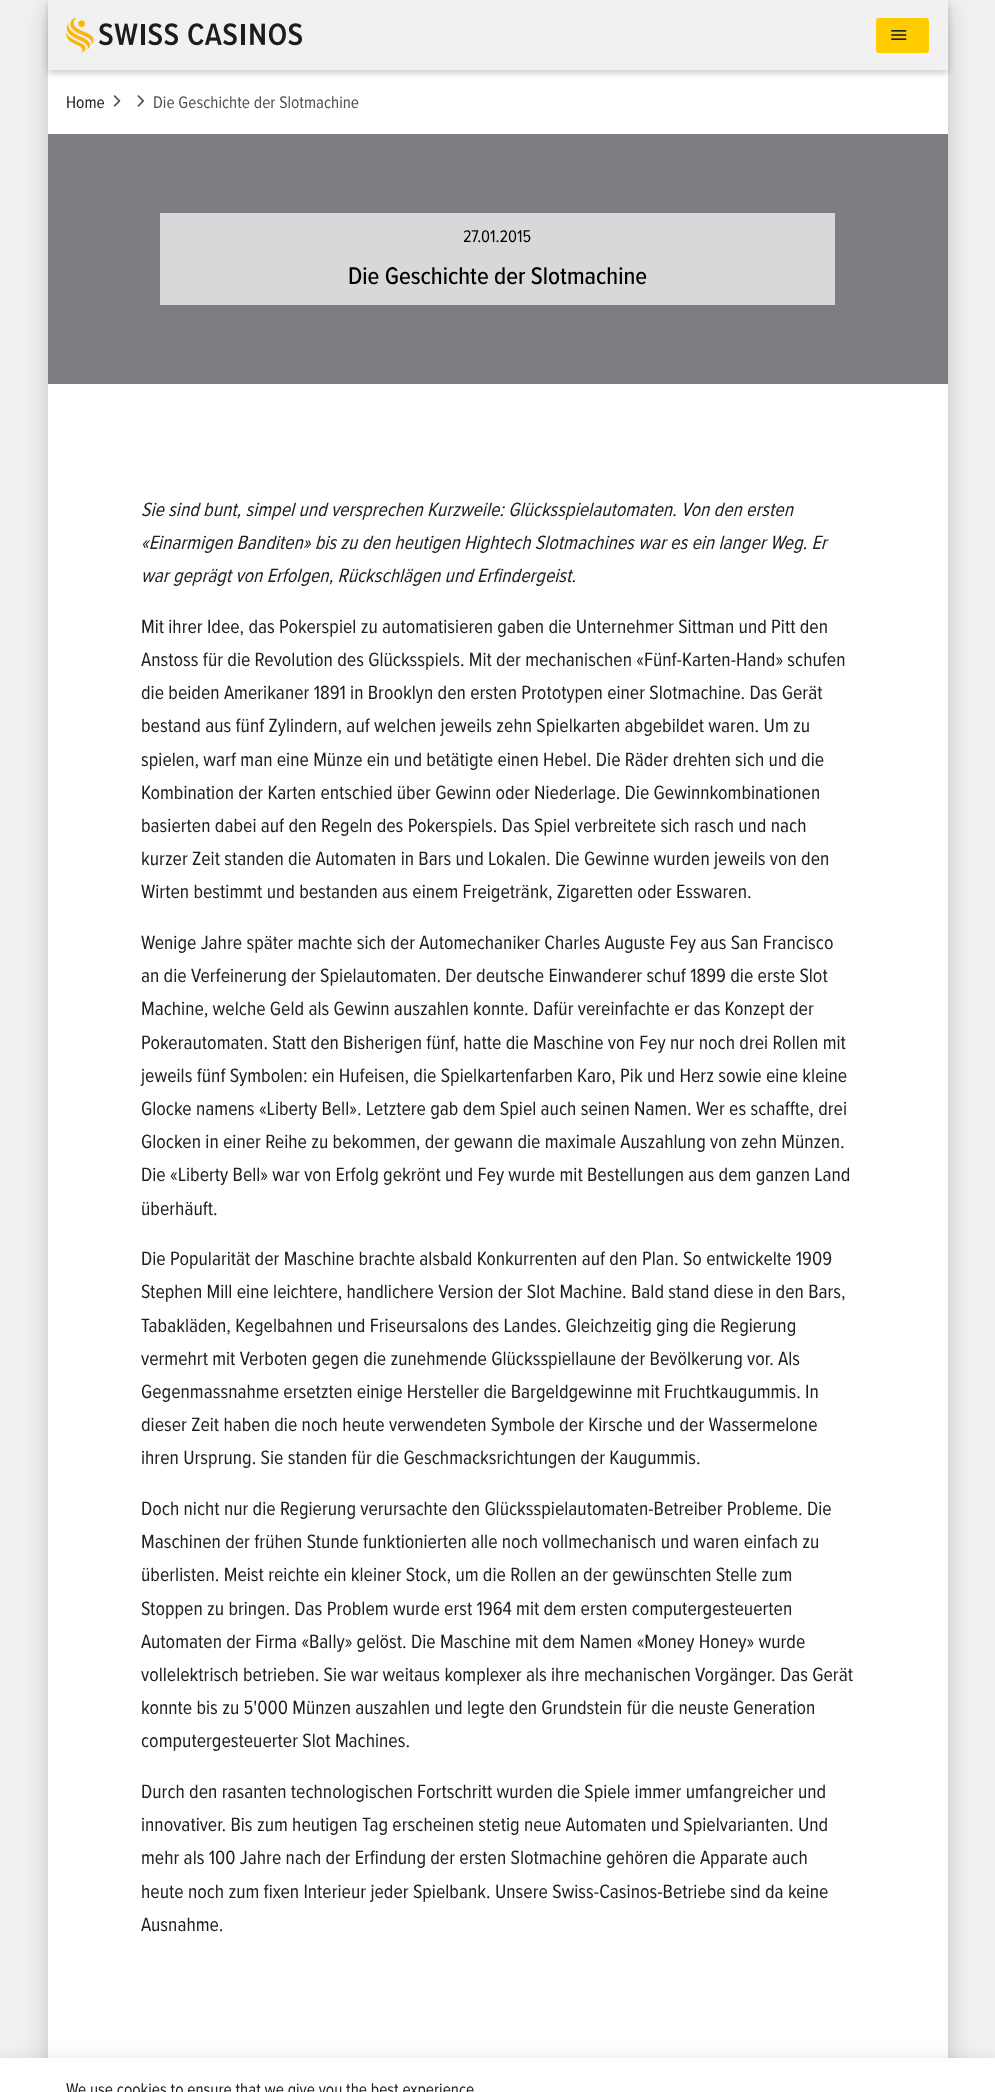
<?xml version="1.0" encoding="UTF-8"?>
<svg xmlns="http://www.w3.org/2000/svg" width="995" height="2092">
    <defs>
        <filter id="blur1" x="-50%" y="-200%" width="200%" height="500%"><feGaussianBlur stdDeviation="12.5"/></filter>
        <filter id="blur2" x="-50%" y="-200%" width="200%" height="500%"><feGaussianBlur stdDeviation="3"/></filter>
    </defs>
    <rect width="100%" height="100%" fill="#F1F1F1"/>
    <rect x="48" y="9" width="900" height="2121" fill="#000000" fill-opacity="0.2" filter="url(#blur1)"/>
    <rect x="48" y="70" width="900" height="1988" fill="#FFFFFF"/>
    <rect x="48" y="3" width="900" height="70" fill="#000000" fill-opacity="0.2" filter="url(#blur2)"/>
    <rect x="48" y="0" width="900" height="70" fill="#F1F1F1"/>
    <image x="66" y="18" width="236" height="35" href="img_01.png"/>
    <rect x="876.5" y="18.5" width="52" height="34" rx="2" fill="#FFCC00" stroke="#FFCC00"/>
    <image x="891" y="30" width="16" height="10" href="img_02.png"/>
    <text x="66" y="108" font-family="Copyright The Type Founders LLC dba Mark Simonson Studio" font-size="17.5" fill="#202020">Home</text>
    <image x="113" y="95" width="8" height="12" href="img_03.png"/>
    <image x="137" y="95" width="7" height="12" href="img_04.png"/>
    <text x="153" y="108" font-family="Copyright The Type Founders LLC dba Mark Simonson Studio" font-size="17.5" fill="#53504B">Die Geschichte der Slotmachine</text>
    <rect x="48" y="134" width="900" height="250" fill="#7E7D82"/>
    <rect x="160" y="213" width="675" height="92" fill="#D8D8DA"/>
    <text x="463" y="242" font-family="Copyright The Type Founders LLC dba Mark Simonson Studio" font-size="17.5" fill="#000000">27.01.2015</text>
    <text x="348" y="284" font-family="Copyright The Type Founders LLC dba Mark Simonson Studio" font-size="25" font-weight="500" fill="#000000">Die Geschichte der Slotmachine</text>
    <text font-family="Copyright The Type Founders LLC dba Mark Simonson Studio" font-size="20" font-style="italic" fill="#202020">
        <tspan x="141" y="516">Sie sind bunt, simpel und versprechen Kurzweile: Glücksspielautomaten. Von den ersten</tspan>
        <tspan x="141" y="549">«Einarmigen Banditen» bis zu den heutigen Hightech Slotmachines war es ein langer Weg. Er</tspan>
        <tspan x="141" y="582">war geprägt von Erfolgen, Rückschlägen und Erfindergeist.</tspan>
    </text>
    <text font-family="Copyright The Type Founders LLC dba Mark Simonson Studio" font-size="20" fill="#202020">
        <tspan x="141" y="633">Mit ihrer Idee, das Pokerspiel zu automatisieren gaben die Unternehmer Sittman und Pitt den</tspan>
        <tspan x="141" y="666">Anstoss für die Revolution des Glücksspiels. Mit der mechanischen «Fünf-Karten-Hand» schufen</tspan>
        <tspan x="141" y="699">die beiden Amerikaner 1891 in Brooklyn den ersten Prototypen einer Slotmachine. Das Gerät</tspan>
        <tspan x="141" y="732">bestand aus fünf Zylindern, auf welchen jeweils zehn Spielkarten abgebildet waren. Um zu</tspan>
        <tspan x="141" y="766">spielen, warf man eine Münze ein und betätigte einen Hebel. Die Räder drehten sich und die</tspan>
        <tspan x="141" y="799">Kombination der Karten entschied über Gewinn oder Niederlage. Die Gewinnkombinationen</tspan>
        <tspan x="141" y="832">basierten dabei auf den Regeln des Pokerspiels. Das Spiel verbreitete sich rasch und nach</tspan>
        <tspan x="141" y="865">kurzer Zeit standen die Automaten in Bars und Lokalen. Die Gewinne wurden jeweils von den</tspan>
        <tspan x="141" y="898">Wirten bestimmt und bestanden aus einem Freigetränk, Zigaretten oder Esswaren.</tspan>
    </text>
    <text font-family="Copyright The Type Founders LLC dba Mark Simonson Studio" font-size="20" fill="#202020">
        <tspan x="141" y="949">Wenige Jahre später machte sich der Automechaniker Charles Auguste Fey aus San Francisco</tspan>
        <tspan x="141" y="982">an die Verfeinerung der Spielautomaten. Der deutsche Einwanderer schuf 1899 die erste Slot</tspan>
        <tspan x="141" y="1015">Machine, welche Geld als Gewinn auszahlen konnte. Dafür vereinfachte er das Konzept der</tspan>
        <tspan x="141" y="1049">Pokerautomaten. Statt den Bisherigen fünf, hatte die Maschine von Fey nur noch drei Rollen mit</tspan>
        <tspan x="141" y="1082">jeweils fünf Symbolen: ein Hufeisen, die Spielkartenfarben Karo, Pik und Herz sowie eine kleine</tspan>
        <tspan x="141" y="1115">Glocke namens «Liberty Bell». Letztere gab dem Spiel auch seinen Namen. Wer es schaffte, drei</tspan>
        <tspan x="141" y="1148">Glocken in einer Reihe zu bekommen, der gewann die maximale Auszahlung von zehn Münzen.</tspan>
        <tspan x="141" y="1181">Die «Liberty Bell» war von Erfolg gekrönt und Fey wurde mit Bestellungen aus dem ganzen Land</tspan>
        <tspan x="141" y="1215">überhäuft.</tspan>
    </text>
    <text font-family="Copyright The Type Founders LLC dba Mark Simonson Studio" font-size="20" fill="#202020">
        <tspan x="141" y="1265">Die Popularität der Maschine brachte alsbald Konkurrenten auf den Plan. So entwickelte 1909</tspan>
        <tspan x="141" y="1298">Stephen Mill eine leichtere, handlichere Version der Slot Machine. Bald stand diese in den Bars,</tspan>
        <tspan x="141" y="1332">Tabakläden, Kegelbahnen und Friseursalons des Landes. Gleichzeitig ging die Regierung</tspan>
        <tspan x="141" y="1365">vermehrt mit Verboten gegen die zunehmende Glücksspiellaune der Bevölkerung vor. Als</tspan>
        <tspan x="141" y="1398">Gegenmassnahme ersetzten einige Hersteller die Bargeldgewinne mit Fruchtkaugummis. In</tspan>
        <tspan x="141" y="1431">dieser Zeit haben die noch heute verwendeten Symbole der Kirsche und der Wassermelone</tspan>
        <tspan x="141" y="1464">ihren Ursprung. Sie standen für die Geschmacksrichtungen der Kaugummis.</tspan>
    </text>
    <text font-family="Copyright The Type Founders LLC dba Mark Simonson Studio" font-size="20" fill="#202020">
        <tspan x="141" y="1515">Doch nicht nur die Regierung verursachte den Glücksspielautomaten-Betreiber Probleme. Die</tspan>
        <tspan x="141" y="1548">Maschinen der frühen Stunde funktionierten alle noch vollmechanisch und waren einfach zu</tspan>
        <tspan x="141" y="1581">überlisten. Meist reichte ein kleiner Stock, um die Rollen an der gewünschten Stelle zum</tspan>
        <tspan x="141" y="1615">Stoppen zu bringen. Das Problem wurde erst 1964 mit dem ersten computergesteuerten</tspan>
        <tspan x="141" y="1648">Automaten der Firma «Bally» gelöst. Die Maschine mit dem Namen «Money Honey» wurde</tspan>
        <tspan x="141" y="1681">vollelektrisch betrieben. Sie war weitaus komplexer als ihre mechanischen Vorgänger. Das Gerät</tspan>
        <tspan x="141" y="1714">konnte bis zu 5'000 Münzen auszahlen und legte den Grundstein für die neuste Generation</tspan>
        <tspan x="141" y="1747">computergesteuerter Slot Machines.</tspan>
    </text>
    <text font-family="Copyright The Type Founders LLC dba Mark Simonson Studio" font-size="20" fill="#202020">
        <tspan x="141" y="1798">Durch den rasanten technologischen Fortschritt wurden die Spiele immer umfangreicher und</tspan>
        <tspan x="141" y="1831">innovativer. Bis zum heutigen Tag erscheinen stetig neue Automaten und Spielvarianten. Und</tspan>
        <tspan x="141" y="1864">mehr als 100 Jahre nach der Erfindung der ersten Slotmachine gehören die Apparate auch</tspan>
        <tspan x="141" y="1898">heute noch zum fixen Interieur jeder Spielbank. Unsere Swiss-Casinos-Betriebe sind da keine</tspan>
        <tspan x="141" y="1931">Ausnahme.</tspan>
    </text>
    <rect x="0" y="2066" width="995" height="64" fill="#000000" fill-opacity="0.2" filter="url(#blur1)"/>
    <rect x="0" y="2058" width="995" height="34" fill="#FFFFFF"/>
    <text x="66" y="2095" font-family="Copyright The Type Founders LLC dba Mark Simonson Studio" font-size="17.5" fill="#202020">We use cookies to ensure that we give you the best experience</text>
</svg>
